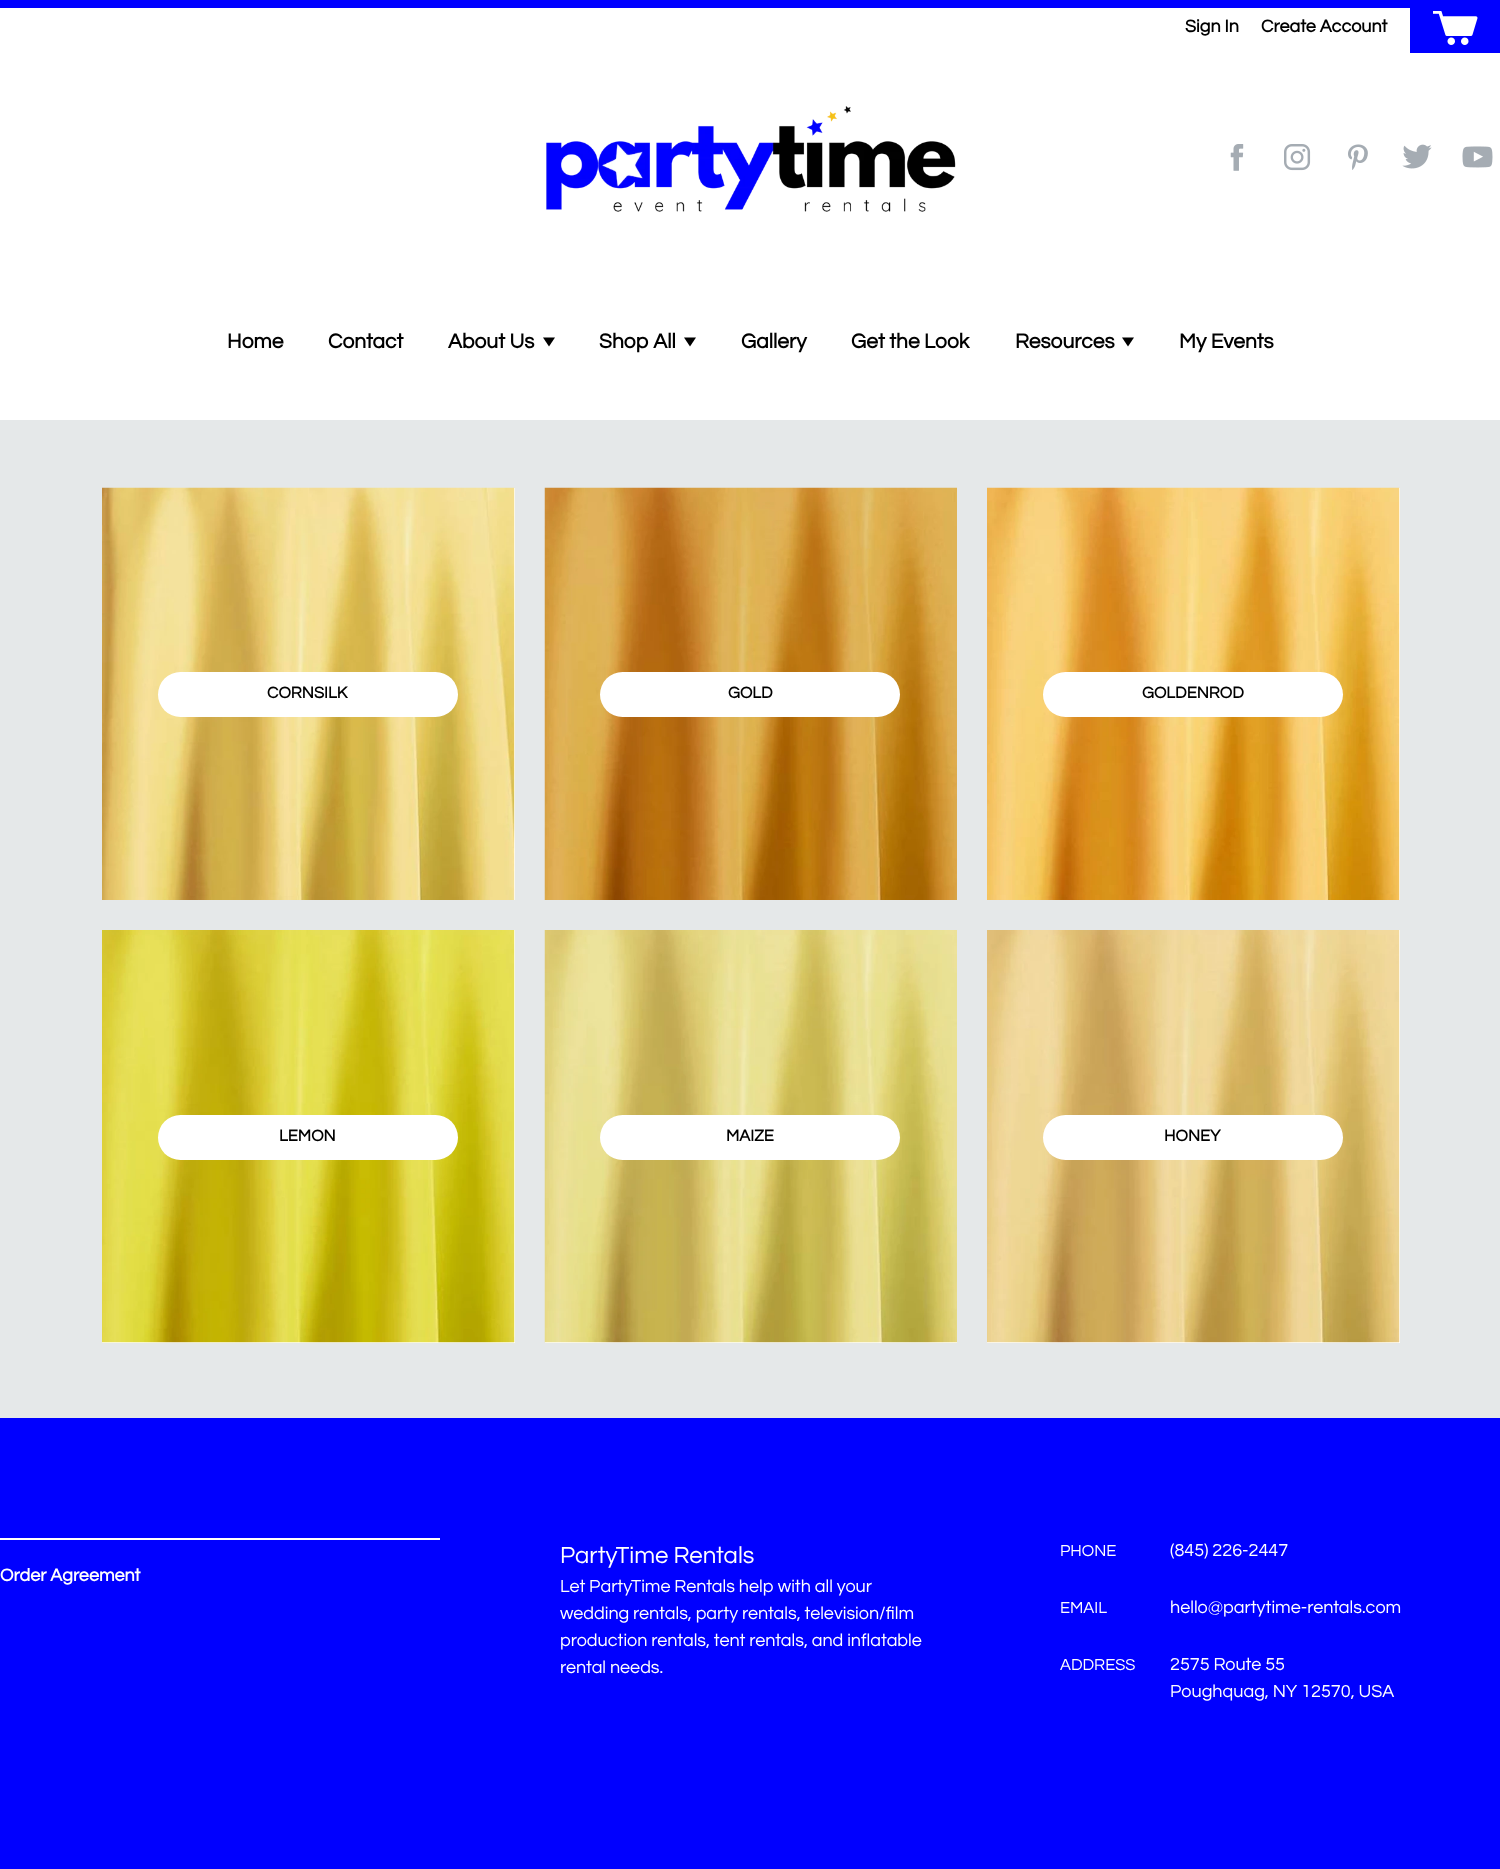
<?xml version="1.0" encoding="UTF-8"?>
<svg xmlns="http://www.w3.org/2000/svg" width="1500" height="1869">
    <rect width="100%" height="100%" fill="#E5E8E9"/>
    <rect x="0" y="8" width="1500" height="412" fill="#FFFFFF"/>
    <rect x="0" y="0" width="1410" height="8" fill="#0000FF"/>
    <text x="1185" y="32" font-family="Questrial" font-size="18" font-weight="700" fill="#000000">Sign In</text>
    <text x="1261" y="32" font-family="Questrial" font-size="18" font-weight="700" fill="#000000">Create Account</text>
    <rect x="1410" y="0" width="90" height="53" fill="#0000FF"/>
    <image x="1433" y="11" width="45" height="34" href="img_01.png"/>
    <image x="546" y="106" width="410" height="106" href="img_02.png"/>
    <image x="1230" y="144" width="14" height="27" href="img_03.png"/>
    <image x="1284" y="144" width="27" height="27" href="img_04.png"/>
    <image x="1348" y="144" width="20" height="26" href="img_05.png"/>
    <image x="1402" y="144" width="30" height="25" href="img_06.png"/>
    <image x="1462" y="146" width="31" height="22" href="img_07.png"/>
    <text x="227" y="348" font-family="Questrial" font-size="21" font-weight="700" fill="#000000">Home</text>
    <text x="328" y="348" font-family="Questrial" font-size="21" font-weight="700" fill="#000000">Contact</text>
    <text x="448" y="348" font-family="Questrial" font-size="21" font-weight="700" fill="#000000">About Us</text>
    <path d="M 543 337.5 H 555 L 549 346.5 Z" fill="#000000"/>
    <text x="599" y="348" font-family="Questrial" font-size="21" font-weight="700" fill="#000000">Shop All</text>
    <path d="M 684 337.5 H 696 L 690 346.5 Z" fill="#000000"/>
    <text x="741" y="348" font-family="Questrial" font-size="21" font-weight="700" fill="#000000">Gallery</text>
    <text x="851" y="348" font-family="Questrial" font-size="21" font-weight="700" fill="#000000">Get the Look</text>
    <text x="1015" y="348" font-family="Questrial" font-size="21" font-weight="700" fill="#000000">Resources</text>
    <path d="M 1122 337.5 H 1134 L 1128 346.5 Z" fill="#000000"/>
    <text x="1179" y="348" font-family="Questrial" font-size="21" font-weight="700" fill="#000000">My Events</text>
    <rect x="514" y="488" width="1" height="412" fill="#FFFFFF"/>
    <image x="102" y="487" width="413" height="413" href="img_08.png"/>
    <rect x="158" y="672" width="300" height="45" rx="22.5" fill="#FFFFFF"/>
    <text x="267" y="698" font-family="Questrial" font-size="16.5" font-weight="700" fill="#000000">CORNSILK</text>
    <image x="544" y="487" width="413" height="413" href="img_09.png"/>
    <rect x="600" y="672" width="300" height="45" rx="22.5" fill="#FFFFFF"/>
    <text x="728" y="698" font-family="Questrial" font-size="16.5" font-weight="700" fill="#000000">GOLD</text>
    <rect x="1399" y="488" width="1" height="412" fill="#FFFFFF"/>
    <image x="987" y="487" width="413" height="413" href="img_10.png"/>
    <rect x="1043" y="672" width="300" height="45" rx="22.5" fill="#FFFFFF"/>
    <text x="1142" y="698" font-family="Questrial" font-size="16.5" font-weight="700" fill="#000000">GOLDENROD</text>
    <rect x="102" y="930" width="413" height="413" fill="#FFFFFF"/>
    <image x="102" y="930" width="413" height="413" href="img_11.png"/>
    <rect x="158" y="1115" width="300" height="45" rx="22.5" fill="#FFFFFF"/>
    <text x="279" y="1141" font-family="Questrial" font-size="16.5" font-weight="700" fill="#000000">LEMON</text>
    <rect x="545" y="1342" width="412" height="1" fill="#FFFFFF"/>
    <image x="544" y="930" width="413" height="413" href="img_12.png"/>
    <rect x="600" y="1115" width="300" height="45" rx="22.5" fill="#FFFFFF"/>
    <text x="726" y="1141" font-family="Questrial" font-size="16.5" font-weight="700" fill="#000000">MAIZE</text>
    <rect x="987" y="930" width="413" height="413" fill="#FFFFFF"/>
    <image x="987" y="930" width="413" height="413" href="img_13.png"/>
    <rect x="1043" y="1115" width="300" height="45" rx="22.5" fill="#FFFFFF"/>
    <text x="1164" y="1141" font-family="Questrial" font-size="16.5" font-weight="700" fill="#000000">HONEY</text>
    <rect x="0" y="1418" width="1500" height="451" fill="#0000FF"/>
    <rect x="0" y="1538" width="440" height="2" fill="#FFFFFF"/>
    <text x="0" y="1581" font-family="Questrial" font-size="18" font-weight="700" fill="#FFFFFF">Order Agreement</text>
    <text x="560" y="1563" font-family="Questrial" font-size="24" fill="#FFFFFF">PartyTime Rentals</text>
    <text font-family="Questrial" font-size="18" fill="#FFFFFF">
        <tspan x="560" y="1592">Let PartyTime Rentals help with all your</tspan>
        <tspan x="560" y="1619">wedding rentals, party rentals, television/film</tspan>
        <tspan x="560" y="1646">production rentals, tent rentals, and inflatable</tspan>
        <tspan x="560" y="1673">rental needs.</tspan>
    </text>
    <text x="1060" y="1556" font-family="Questrial" font-size="16.5" fill="#FFFFFF">PHONE</text>
    <text x="1170" y="1556" font-family="Questrial" font-size="18" fill="#FFFFFF">(845) 226-2447</text>
    <text x="1060" y="1613" font-family="Questrial" font-size="16.5" fill="#FFFFFF">EMAIL</text>
    <text x="1170" y="1613" font-family="Questrial" font-size="18" fill="#FFFFFF">hello@partytime-rentals.com</text>
    <text x="1060" y="1670" font-family="Questrial" font-size="16.5" fill="#FFFFFF">ADDRESS</text>
    <text font-family="Questrial" font-size="18" fill="#FFFFFF">
        <tspan x="1170" y="1670">2575 Route 55</tspan>
        <tspan x="1170" y="1697">Poughquag, NY 12570, USA</tspan>
    </text>
</svg>
